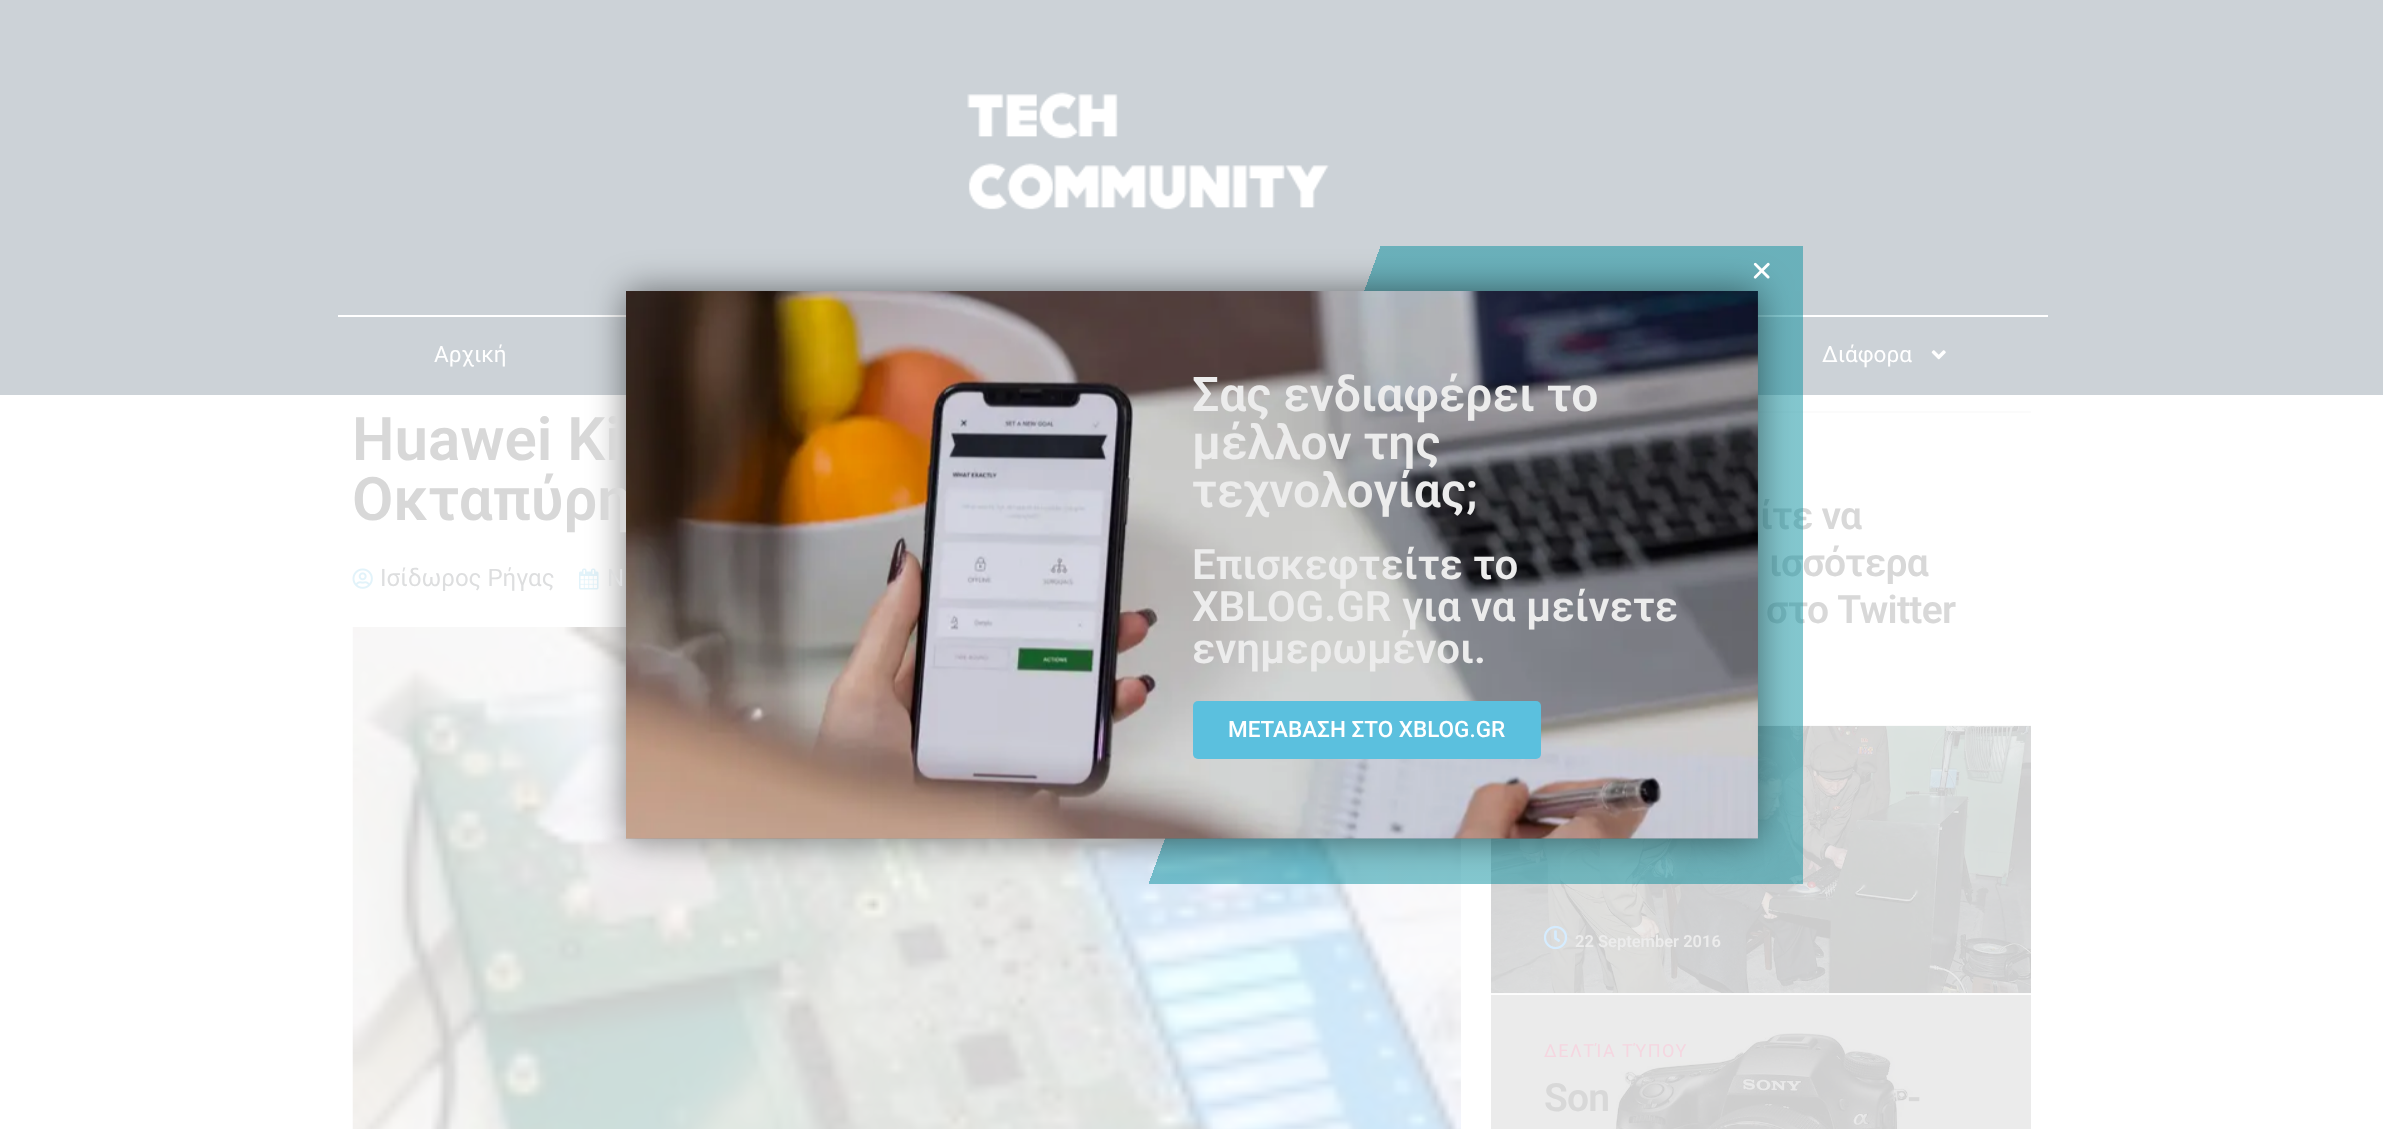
<?xml version="1.0" encoding="UTF-8"?>
<svg xmlns="http://www.w3.org/2000/svg" width="2383" height="1129">
    <defs>
        <linearGradient id="g1" gradientUnits="userSpaceOnUse" x1="1834" y1="798" x2="550" y2="331"><stop offset="0.45" stop-color="#088F9E" stop-opacity="0.5"/><stop offset="0.45" stop-color="#088F9E" stop-opacity="0"/></linearGradient>
        <filter id="blur1" x="-50%" y="-200%" width="200%" height="500%"><feGaussianBlur stdDeviation="18"/></filter>
    </defs>
    <rect width="100%" height="100%" fill="#FFFFFF"/>
    <rect x="0" y="0" width="2383" height="395" fill="#CCD2D7"/>
    <image x="967" y="92" width="363" height="118" href="img_01.png"/>
    <rect x="338" y="315" width="1710" height="2" fill="#FFFFFF"/>
    <text x="434" y="362" font-family="Roboto" font-size="22.5" fill="#FFFFFF">Αρχική</text>
    <text x="1822" y="362" font-family="Roboto" font-size="22.5" fill="#FFFFFF">Διάφορα</text>
    <image x="1931" y="350" width="15" height="10" href="img_02.png"/>
    <image x="352" y="627" width="1109" height="502" href="img_07.png"/>
    <rect x="1757" y="411" width="274" height="2" fill="#FBFBFB"/>
    <text x="1760" y="529" font-family="Roboto" font-size="39" font-weight="600" letter-spacing="-0.75" fill="#D8D8D8">ίτε να</text>
    <text x="1769" y="576" font-family="Roboto" font-size="39" font-weight="600" letter-spacing="-0.75" fill="#D8D8D8">ισσότερα</text>
    <text x="1766" y="623" font-family="Roboto" font-size="39" font-weight="600" letter-spacing="-0.75" fill="#D8D8D8">στο Twitter</text>
    <rect x="1757" y="725" width="274" height="1" fill="#FBFBFB"/>
    <image x="1491" y="726" width="540" height="267" href="img_08.png"/>
    <rect x="1149" y="246" width="654" height="638" fill="url(#g1)"/>
    <image x="579" y="568" width="20" height="22" href="img_06.png"/>
    <rect x="626" y="291" width="1132" height="548" fill="#000000" fill-opacity="0.5" filter="url(#blur1)"/>
    <image x="1753" y="262" width="17" height="17" href="img_03.png"/>
    <text x="352" y="520" font-family="Roboto" font-size="60" font-weight="600" fill="#D8D8D8">Οκταπύρη</text>
    <image x="626" y="291" width="1132" height="548" href="img_04.png"/>
    <rect x="626" y="291" width="1132" height="548" fill="#000000" fill-opacity="0.09"/>
    <text font-family="Roboto" font-size="48" font-weight="600" fill="#ECECEC">
        <tspan x="1192" y="411">Σας ενδιαφέρει το</tspan>
        <tspan x="1192" y="459">μέλλον της</tspan>
        <tspan x="1192" y="507">τεχνολογίας;</tspan>
    </text>
    <text font-family="Roboto" font-size="42" font-weight="600" fill="#ECECEC">
        <tspan x="1192" y="579">Επισκεφτείτε το</tspan>
        <tspan x="1192" y="621">XBLOG.GR για να μείνετε</tspan>
        <tspan x="1192" y="663">ενημερωμένοι.</tspan>
    </text>
    <rect x="1193" y="701" width="348" height="58" rx="5" fill="#5BC0DE"/>
    <text x="1228" y="737" font-family="Roboto" font-size="22.5" font-weight="500" fill="#FFFFFF">ΜΕΤΑΒΑΣΗ ΣΤΟ XBLOG.GR</text>
    <text x="352" y="460" font-family="Roboto" font-size="60" font-weight="600" fill="#D8D8D8">Huawei Ki</text>
    <image x="352" y="568" width="21" height="21" href="img_05.png"/>
    <text x="380" y="586" font-family="Roboto" font-size="24" fill="#DDDEDF">Ισίδωρος Ρήγας</text>
    <text x="607" y="586" font-family="Roboto" font-size="24" fill="#DDDEDF">N</text>
    <image x="1543" y="925" width="25" height="25" href="img_09.png"/>
    <text x="1575" y="947" font-family="Roboto" font-size="16.5" font-weight="600" fill="#ECECEC">22 September 2016</text>
    <rect x="1491" y="993" width="540" height="2" fill="#FBFBFB"/>
    <image x="1491" y="994" width="540" height="135" href="img_10.png"/>
    <text x="1544" y="1057" font-family="Roboto" font-size="18" letter-spacing="1.5" fill="#F5D6E0">ΔΕΛΤΊΑ ΤΎΠΟΥ</text>
    <text x="1544" y="1111" font-family="Roboto" font-size="39" font-weight="600" letter-spacing="-0.75" fill="#D8D8D8">Son</text>
    <text x="1907" y="1111" font-family="Roboto" font-size="39" font-weight="600" letter-spacing="-0.75" fill="#D8D8D8">-</text>
</svg>
